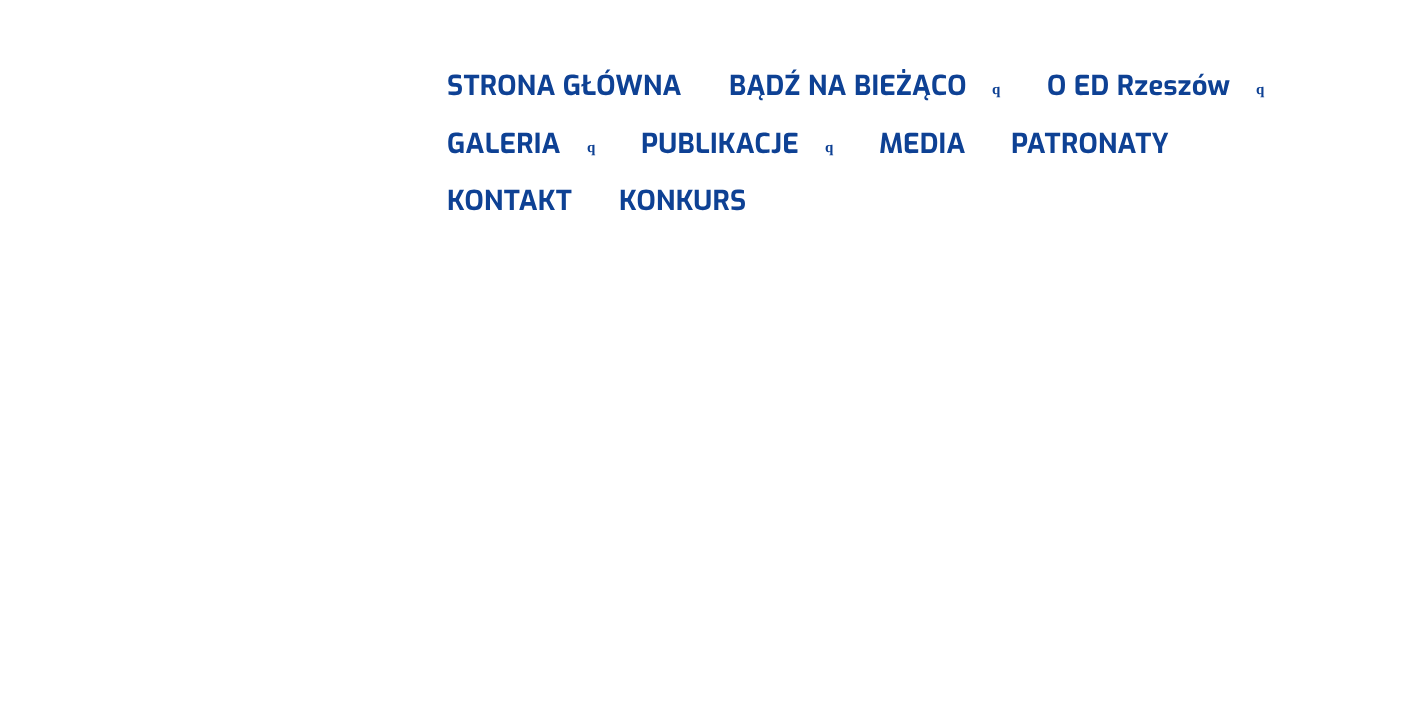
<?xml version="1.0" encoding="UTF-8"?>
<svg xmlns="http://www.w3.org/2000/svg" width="1403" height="711">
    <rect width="100%" height="100%" fill="#FFFFFF"/>
    <text x="447" y="95" font-family="Exo" font-size="27.5" font-weight="700" letter-spacing="0.25" fill="#0E4194">STRONA GŁÓWNA</text>
    <text x="729" y="95" font-family="Exo" font-size="27.5" font-weight="700" letter-spacing="0.25" fill="#0E4194">BĄDŹ NA BIEŻĄCO</text>
    <text x="992" y="94" font-family="Liberation Serif" font-size="15" font-weight="700" letter-spacing="0.25" fill="#0E4194">q</text>
    <text x="1047" y="95" font-family="Exo" font-size="27.5" font-weight="700" letter-spacing="0.25" fill="#0E4194">O ED Rzeszów</text>
    <text x="1256" y="94" font-family="Liberation Serif" font-size="15" font-weight="700" letter-spacing="0.25" fill="#0E4194">q</text>
    <text x="447" y="153" font-family="Exo" font-size="27.5" font-weight="700" letter-spacing="0.25" fill="#0E4194">GALERIA</text>
    <text x="587" y="152" font-family="Liberation Serif" font-size="15" font-weight="700" letter-spacing="0.25" fill="#0E4194">q</text>
    <text x="641" y="153" font-family="Exo" font-size="27.5" font-weight="700" letter-spacing="0.25" fill="#0E4194">PUBLIKACJE</text>
    <text x="825" y="152" font-family="Liberation Serif" font-size="15" font-weight="700" letter-spacing="0.25" fill="#0E4194">q</text>
    <text x="879" y="153" font-family="Exo" font-size="27.5" font-weight="700" letter-spacing="0.25" fill="#0E4194">MEDIA</text>
    <text x="1011" y="153" font-family="Exo" font-size="27.5" font-weight="700" letter-spacing="0.25" fill="#0E4194">PATRONATY</text>
    <text x="447" y="210" font-family="Exo" font-size="27.5" font-weight="700" letter-spacing="0.25" fill="#0E4194">KONTAKT</text>
    <text x="619" y="210" font-family="Exo" font-size="27.5" font-weight="700" letter-spacing="0.25" fill="#0E4194">KONKURS</text>
</svg>
